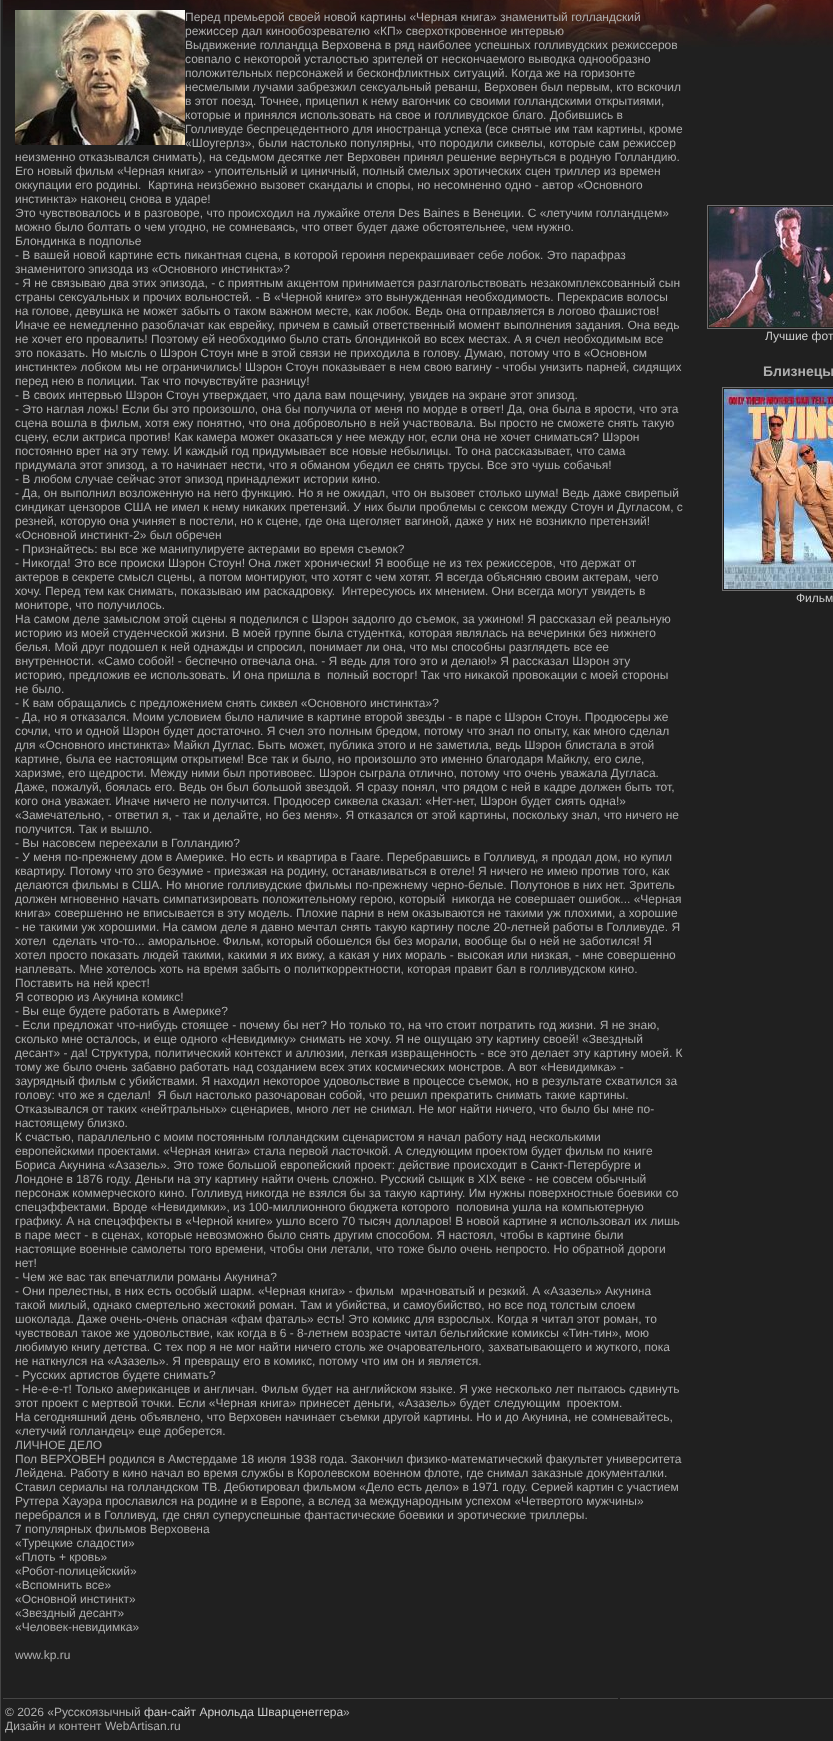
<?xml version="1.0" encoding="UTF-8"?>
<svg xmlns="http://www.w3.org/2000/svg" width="833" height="1741">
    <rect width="100%" height="100%" fill="#202020"/>
    <image x="3" y="0" width="830" height="47" href="img_01.png"/>
    <rect x="0" y="0" width="1" height="1741" fill="#454545"/>
    <image x="15" y="10" width="170" height="135" href="img_02.png"/>
    <text font-family="Liberation Sans" font-size="12" fill="#AEAEAE">
        <tspan x="185" y="21">Перед премьерой своей новой картины «Черная книга» знаменитый голландский</tspan>
        <tspan x="185" y="35">режиссер дал кинообозревателю «КП» сверхоткровенное интервью</tspan>
        <tspan x="185" y="49">Выдвижение голландца Верховена в ряд наиболее успешных голливудских режиссеров</tspan>
        <tspan x="185" y="63">совпало с некоторой усталостью зрителей от нескончаемого выводка однообразно</tspan>
        <tspan x="185" y="77">положительных персонажей и бесконфликтных ситуаций. Когда же на горизонте</tspan>
        <tspan x="185" y="91">несмелыми лучами забрезжил сексуальный реванш, Верховен был первым, кто вскочил</tspan>
        <tspan x="185" y="105">в этот поезд. Точнее, прицепил к нему вагончик со своими голландскими открытиями,</tspan>
        <tspan x="185" y="119">которые и принялся использовать на свое и голливудское благо. Добившись в</tspan>
        <tspan x="185" y="133">Голливуде беспрецедентного для иностранца успеха (все снятые им там картины, кроме</tspan>
        <tspan x="185" y="147">«Шоугерлз», были настолько популярны, что породили сиквелы, которые сам режиссер</tspan>
    </text>
    <text font-family="Liberation Sans" font-size="12" fill="#AEAEAE" xml:space="preserve"><tspan x="15" y="161">неизменно отказывался снимать), на седьмом десятке лет Верховен принял решение вернуться в родную Голландию.</tspan><tspan x="15" y="175">Его новый фильм «Черная книга» - упоительный и циничный, полный смелых эротических сцен триллер из времен</tspan><tspan x="15" y="189">оккупации его родины.  Картина неизбежно вызовет скандалы и споры, но несомненно одно - автор «Основного</tspan><tspan x="15" y="203">инстинкта» наконец снова в ударе!</tspan><tspan x="15" y="217">Это чувствовалось и в разговоре, что происходил на лужайке отеля Des Baines в Венеции. С «летучим голландцем»</tspan><tspan x="15" y="231">можно было болтать о чем угодно, не сомневаясь, что ответ будет даже обстоятельнее, чем нужно.</tspan><tspan x="15" y="245">Блондинка в подполье</tspan><tspan x="15" y="259">- В вашей новой картине есть пикантная сцена, в которой героиня перекрашивает себе лобок. Это парафраз</tspan><tspan x="15" y="273">знаменитого эпизода из «Основного инстинкта»?</tspan><tspan x="15" y="287">- Я не связываю два этих эпизода, - с приятным акцентом принимается разглагольствовать незакомплексованный сын</tspan><tspan x="15" y="301">страны сексуальных и прочих вольностей. - В «Черной книге» это вынужденная необходимость. Перекрасив волосы</tspan><tspan x="15" y="315">на голове, девушка не может забыть о таком важном месте, как лобок. Ведь она отправляется в логово фашистов!</tspan><tspan x="15" y="329">Иначе ее немедленно разоблачат как еврейку, причем в самый ответственный момент выполнения задания. Она ведь</tspan><tspan x="15" y="343">не хочет его провалить! Поэтому ей необходимо было стать блондинкой во всех местах. А я счел необходимым все</tspan><tspan x="15" y="357">это показать. Но мысль о Шэрон Стоун мне в этой связи не приходила в голову. Думаю, потому что в «Основном</tspan><tspan x="15" y="371">инстинкте» лобком мы не ограничились! Шэрон Стоун показывает в нем свою вагину - чтобы унизить парней, сидящих</tspan><tspan x="15" y="385">перед нею в полиции. Так что почувствуйте разницу!</tspan><tspan x="15" y="399">- В своих интервью Шэрон Стоун утверждает, что дала вам пощечину, увидев на экране этот эпизод.</tspan><tspan x="15" y="413">- Это наглая ложь! Если бы это произошло, она бы получила от меня по морде в ответ! Да, она была в ярости, что эта</tspan><tspan x="15" y="427">сцена вошла в фильм, хотя ежу понятно, что она добровольно в ней участвовала. Вы просто не сможете снять такую</tspan><tspan x="15" y="441">сцену, если актриса против! Как камера может оказаться у нее между ног, если она не хочет сниматься? Шэрон</tspan><tspan x="15" y="455">постоянно врет на эту тему. И каждый год придумывает все новые небылицы. То она рассказывает, что сама</tspan><tspan x="15" y="469">придумала этот эпизод, а то начинает нести, что я обманом убедил ее снять трусы. Все это чушь собачья!</tspan><tspan x="15" y="483">- В любом случае сейчас этот эпизод принадлежит истории кино.</tspan><tspan x="15" y="497">- Да, он выполнил возложенную на него функцию. Но я не ожидал, что он вызовет столько шума! Ведь даже свирепый</tspan><tspan x="15" y="511">синдикат цензоров США не имел к нему никаких претензий. У них были проблемы с сексом между Стоун и Дугласом, с</tspan><tspan x="15" y="525">резней, которую она учиняет в постели, но к сцене, где она щеголяет вагиной, даже у них не возникло претензий!</tspan><tspan x="15" y="539">«Основной инстинкт-2» был обречен</tspan><tspan x="15" y="553">- Признайтесь: вы все же манипулируете актерами во время съемок?</tspan><tspan x="15" y="567">- Никогда! Это все происки Шэрон Стоун! Она лжет хронически! Я вообще не из тех режиссеров, что держат от</tspan><tspan x="15" y="581">актеров в секрете смысл сцены, а потом монтируют, что хотят с чем хотят. Я всегда объясняю своим актерам, чего</tspan><tspan x="15" y="595">хочу. Перед тем как снимать, показываю им раскадровку.  Интересуюсь их мнением. Они всегда могут увидеть в</tspan><tspan x="15" y="609">мониторе, что получилось.</tspan><tspan x="15" y="623">На самом деле замыслом этой сцены я поделился с Шэрон задолго до съемок, за ужином! Я рассказал ей реальную</tspan><tspan x="15" y="637">историю из моей студенческой жизни. В моей группе была студентка, которая являлась на вечеринки без нижнего</tspan><tspan x="15" y="651">белья. Мой друг подошел к ней однажды и спросил, понимает ли она, что мы способны разглядеть все ее</tspan><tspan x="15" y="665">внутренности. «Само собой! - беспечно отвечала она. - Я ведь для того это и делаю!» Я рассказал Шэрон эту</tspan><tspan x="15" y="679">историю, предложив ее использовать. И она пришла в  полный восторг! Так что никакой провокации с моей стороны</tspan><tspan x="15" y="693">не было.</tspan><tspan x="15" y="707">- К вам обращались с предложением снять сиквел «Основного инстинкта»?</tspan><tspan x="15" y="721">- Да, но я отказался. Моим условием было наличие в картине второй звезды - в паре с Шэрон Стоун. Продюсеры же</tspan><tspan x="15" y="735">сочли, что и одной Шэрон будет достаточно. Я счел это полным бредом, потому что знал по опыту, как много сделал</tspan><tspan x="15" y="749">для «Основного инстинкта» Майкл Дуглас. Быть может, публика этого и не заметила, ведь Шэрон блистала в этой</tspan><tspan x="15" y="763">картине, была ее настоящим открытием! Все так и было, но произошло это именно благодаря Майклу, его силе,</tspan><tspan x="15" y="777">харизме, его щедрости. Между ними был противовес. Шэрон сыграла отлично, потому что очень уважала Дугласа.</tspan><tspan x="15" y="791">Даже, пожалуй, боялась его. Ведь он был большой звездой. Я сразу понял, что рядом с ней в кадре должен быть тот,</tspan><tspan x="15" y="805">кого она уважает. Иначе ничего не получится. Продюсер сиквела сказал: «Нет-нет, Шэрон будет сиять одна!»</tspan><tspan x="15" y="819">«Замечательно, - ответил я, - так и делайте, но без меня». Я отказался от этой картины, поскольку знал, что ничего не</tspan><tspan x="15" y="833">получится. Так и вышло.</tspan><tspan x="15" y="847">- Вы насовсем переехали в Голландию?</tspan><tspan x="15" y="861">- У меня по-прежнему дом в Америке. Но есть и квартира в Гааге. Перебравшись в Голливуд, я продал дом, но купил</tspan><tspan x="15" y="875">квартиру. Потому что это безумие - приезжая на родину, останавливаться в отеле! Я ничего не имею против того, как</tspan><tspan x="15" y="889">делаются фильмы в США. Но многие голливудские фильмы по-прежнему черно-белые. Полутонов в них нет. Зритель</tspan><tspan x="15" y="903">должен мгновенно начать симпатизировать положительному герою, который  никогда не совершает ошибок... «Черная</tspan><tspan x="15" y="917">книга» совершенно не вписывается в эту модель. Плохие парни в нем оказываются не такими уж плохими, а хорошие</tspan><tspan x="15" y="931">- не такими уж хорошими. На самом деле я давно мечтал снять такую картину после 20-летней работы в Голливуде. Я</tspan><tspan x="15" y="945">хотел  сделать что-то... аморальное. Фильм, который обошелся бы без морали, вообще бы о ней не заботился! Я</tspan><tspan x="15" y="959">хотел просто показать людей такими, какими я их вижу, а какая у них мораль - высокая или низкая, - мне совершенно</tspan><tspan x="15" y="973">наплевать. Мне хотелось хоть на время забыть о политкорректности, которая правит бал в голливудском кино.</tspan><tspan x="15" y="987">Поставить на ней крест!</tspan><tspan x="15" y="1001">Я сотворю из Акунина комикс!</tspan><tspan x="15" y="1015">- Вы еще будете работать в Америке?</tspan><tspan x="15" y="1029">- Если предложат что-нибудь стоящее - почему бы нет? Но только то, на что стоит потратить год жизни. Я не знаю,</tspan><tspan x="15" y="1043">сколько мне осталось, и еще одного «Невидимку» снимать не хочу. Я не ощущаю эту картину своей! «Звездный</tspan><tspan x="15" y="1057">десант» - да! Структура, политический контекст и аллюзии, легкая извращенность - все это делает эту картину моей. К</tspan><tspan x="15" y="1071">тому же было очень забавно работать над созданием всех этих космических монстров. А вот «Невидимка» -</tspan><tspan x="15" y="1085">заурядный фильм с убийствами. Я находил некоторое удовольствие в процессе съемок, но в результате схватился за</tspan><tspan x="15" y="1099">голову: что же я сделал!  Я был настолько разочарован собой, что решил прекратить снимать такие картины.</tspan><tspan x="15" y="1113">Отказывался от таких «нейтральных» сценариев, много лет не снимал. Не мог найти ничего, что было бы мне по-</tspan><tspan x="15" y="1127">настоящему близко.</tspan><tspan x="15" y="1141">К счастью, параллельно с моим постоянным голландским сценаристом я начал работу над несколькими</tspan><tspan x="15" y="1155">европейскими проектами. «Черная книга» стала первой ласточкой. А следующим проектом будет фильм по книге</tspan><tspan x="15" y="1169">Бориса Акунина «Азазель». Это тоже большой европейский проект: действие происходит в Санкт-Петербурге и</tspan><tspan x="15" y="1183">Лондоне в 1876 году. Деньги на эту картину найти очень сложно. Русский сыщик в ХIX веке - не совсем обычный</tspan><tspan x="15" y="1197">персонаж коммерческого кино. Голливуд никогда не взялся бы за такую картину. Им нужны поверхностные боевики со</tspan><tspan x="15" y="1211">спецэффектами. Вроде «Невидимки», из 100-миллионного бюджета которого  половина ушла на компьютерную</tspan><tspan x="15" y="1225">графику. А на спецэффекты в «Черной книге» ушло всего 70 тысяч долларов! В новой картине я использовал их лишь</tspan><tspan x="15" y="1239">в паре мест - в сценах, которые невозможно было снять другим способом. Я настоял, чтобы в картине были</tspan><tspan x="15" y="1253">настоящие военные самолеты того времени, чтобы они летали, что тоже было очень непросто. Но обратной дороги</tspan><tspan x="15" y="1267">нет!</tspan><tspan x="15" y="1281">- Чем же вас так впечатлили романы Акунина?</tspan><tspan x="15" y="1295">- Они прелестны, в них есть особый шарм. «Черная книга» - фильм  мрачноватый и резкий. А «Азазель» Акунина</tspan><tspan x="15" y="1309">такой милый, однако смертельно жестокий роман. Там и убийства, и самоубийство, но все под толстым слоем</tspan><tspan x="15" y="1323">шоколада. Даже очень-очень опасная «фам фаталь» есть! Это комикс для взрослых. Когда я читал этот роман, то</tspan><tspan x="15" y="1337">чувствовал такое же удовольствие, как когда в 6 - 8-летнем возрасте читал бельгийские комиксы «Тин-тин», мою</tspan><tspan x="15" y="1351">любимую книгу детства. С тех пор я не мог найти ничего столь же очаровательного, захватывающего и жуткого, пока</tspan><tspan x="15" y="1365">не наткнулся на «Азазель». Я превращу его в комикс, потому что им он и является.</tspan><tspan x="15" y="1379">- Русских артистов будете снимать?</tspan><tspan x="15" y="1393">- Не-е-е-т! Только американцев и англичан. Фильм будет на английском языке. Я уже несколько лет пытаюсь сдвинуть</tspan><tspan x="15" y="1407">этот проект с мертвой точки. Если «Черная книга» принесет деньги, «Азазель» будет следующим  проектом.</tspan><tspan x="15" y="1421">На сегодняшний день объявлено, что Верховен начинает съемки другой картины. Но и до Акунина, не сомневайтесь,</tspan><tspan x="15" y="1435">«летучий голландец» еще доберется.</tspan><tspan x="15" y="1449">ЛИЧНОЕ ДЕЛО</tspan><tspan x="15" y="1463">Пол ВЕРХОВЕН родился в Амстердаме 18 июля 1938 года. Закончил физико-математический факультет университета</tspan><tspan x="15" y="1477">Лейдена. Работу в кино начал во время службы в Королевском военном флоте, где снимал заказные документалки.</tspan><tspan x="15" y="1491">Ставил сериалы на голландском ТВ. Дебютировал фильмом «Дело есть дело» в 1971 году. Серией картин с участием</tspan><tspan x="15" y="1505">Рутгера Хауэра прославился на родине и в Европе, а вслед за международным успехом «Четвертого мужчины»</tspan><tspan x="15" y="1519">перебрался и в Голливуд, где снял суперуспешные фантастические боевики и эротические триллеры.</tspan><tspan x="15" y="1533">7 популярных фильмов Верховена</tspan><tspan x="15" y="1547">«Турецкие сладости»</tspan><tspan x="15" y="1561">«Плоть + кровь»</tspan><tspan x="15" y="1575">«Робот-полицейский»</tspan><tspan x="15" y="1589">«Вспомнить все»</tspan><tspan x="15" y="1603">«Основной инстинкт»</tspan><tspan x="15" y="1617">«Звездный десант»</tspan><tspan x="15" y="1631">«Человек-невидимка»</tspan></text>
    <text x="15" y="1659" font-family="Liberation Sans" font-size="12" fill="#AEAEAE">www.kp.ru</text>
    <rect x="707.5" y="205.5" width="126" height="123" fill="none" stroke="#6E6D6D"/>
    <image x="709" y="207" width="124" height="120" href="img_03.png"/>
    <text x="765" y="340" font-family="Liberation Sans" font-size="12" fill="#CCCCCC">Лучшие фот</text>
    <text x="763" y="376" font-family="Liberation Sans" font-size="14" font-weight="700" fill="#AEAEAE">Близнецы</text>
    <rect x="722.5" y="387.5" width="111" height="203" fill="none" stroke="#6E6D6D"/>
    <image x="724" y="389" width="109" height="200" href="img_04.png"/>
    <text x="796" y="602" font-family="Liberation Sans" font-size="12" fill="#CCCCCC">Фильм</text>
    <rect x="620" y="1698" width="213" height="1" fill="#454545"/>
    <rect x="3" y="1698" width="615" height="1" fill="#454545"/>
    <text x="5" y="1716" font-family="Liberation Sans" font-size="12" fill="#AEAEAE">© 2026 «Русскоязычный</text>
    <text x="144" y="1716" font-family="Liberation Sans" font-size="12" fill="#CCCCCC">фан-сайт Арнольда Шварценеггера</text>
    <text x="343" y="1716" font-family="Liberation Sans" font-size="12" fill="#AEAEAE">»</text>
    <text x="5" y="1730" font-family="Liberation Sans" font-size="12" fill="#AEAEAE">Дизайн и контент WebArtisan.ru</text>
</svg>
